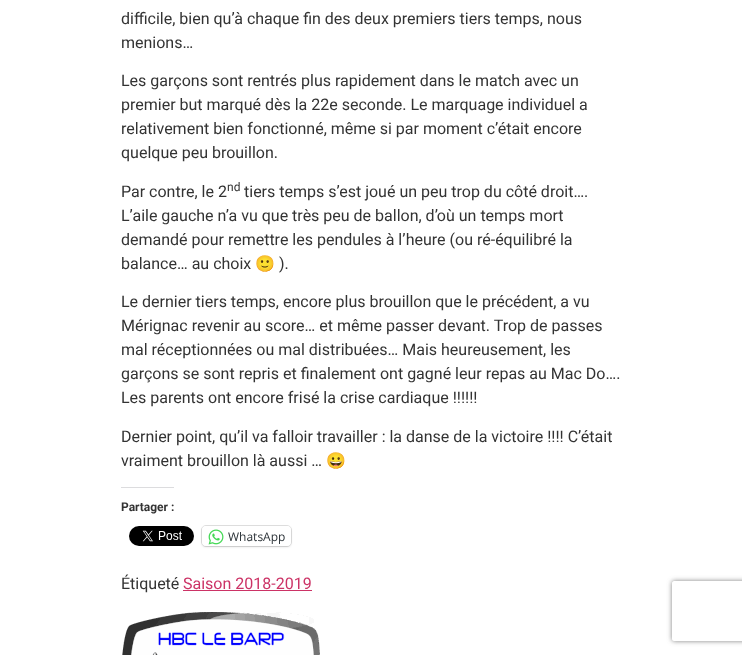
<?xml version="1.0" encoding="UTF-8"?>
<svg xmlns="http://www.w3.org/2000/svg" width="742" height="655">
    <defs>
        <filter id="blur1" x="-50%" y="-200%" width="200%" height="500%"><feGaussianBlur stdDeviation="1"/></filter>
        <clipPath id="clip1"><path d="M 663 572 H 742 V 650 H 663 Z M 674 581 H 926 C 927 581 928 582 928 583 V 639 C 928 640 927 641 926 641 H 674 C 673 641 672 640 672 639 V 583 C 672 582 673 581 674 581 Z" clip-rule="evenodd"/></clipPath>
        <filter id="blur2" x="-50%" y="-200%" width="200%" height="500%"><feGaussianBlur stdDeviation="2.5"/></filter>
    </defs>
    <rect width="100%" height="100%" fill="#FFFFFF"/>
    <text font-family="Roboto" font-size="16" fill="#333333">
        <tspan x="121" y="24">difficile, bien qu’à chaque fin des deux premiers tiers temps, nous</tspan>
        <tspan x="121" y="48">menions…</tspan>
    </text>
    <text font-family="Roboto" font-size="16" fill="#333333">
        <tspan x="121" y="86">Les garçons sont rentrés plus rapidement dans le match avec un</tspan>
        <tspan x="121" y="110">premier but marqué dès la 22e seconde. Le marquage individuel a</tspan>
        <tspan x="121" y="134">relativement bien fonctionné, même si par moment c’était encore</tspan>
        <tspan x="121" y="158">quelque peu brouillon.</tspan>
    </text>
    <text x="121" y="197" font-family="Roboto" font-size="16" fill="#333333">Par contre, le 2</text>
    <text x="227" y="191" font-family="Roboto" font-size="12" fill="#333333">nd</text>
    <text x="244" y="197" font-family="Roboto" font-size="16" fill="#333333">tiers temps s’est joué un peu trop du côté droit….</text>
    <text font-family="Roboto" font-size="16" fill="#333333">
        <tspan x="121" y="221">L’aile gauche n’a vu que très peu de ballon, d’où un temps mort</tspan>
        <tspan x="121" y="245">demandé pour remettre les pendules à l’heure (ou ré-équilibré la</tspan>
        <tspan x="121" y="269">balance… au choix</tspan>
    </text>
    <text x="255" y="269" font-family="Noto Color Emoji" font-size="16" fill="#333333">🙂</text>
    <text x="279" y="269" font-family="Roboto" font-size="16" fill="#333333">).</text>
    <text font-family="Roboto" font-size="16" fill="#333333">
        <tspan x="121" y="307">Le dernier tiers temps, encore plus brouillon que le précédent, a vu</tspan>
        <tspan x="121" y="331">Mérignac revenir au score… et même passer devant. Trop de passes</tspan>
        <tspan x="121" y="355">mal réceptionnées ou mal distribuées… Mais heureusement, les</tspan>
        <tspan x="121" y="379">garçons se sont repris et finalement ont gagné leur repas au Mac Do….</tspan>
        <tspan x="121" y="403">Les parents ont encore frisé la crise cardiaque !!!!!!</tspan>
    </text>
    <text font-family="Roboto" font-size="16" fill="#333333">
        <tspan x="121" y="442">Dernier point, qu’il va falloir travailler : la danse de la victoire !!!! C’était</tspan>
        <tspan x="121" y="466">vraiment brouillon là aussi …</tspan>
    </text>
    <text x="326" y="466" font-family="Noto Color Emoji" font-size="16" fill="#333333">😀</text>
    <rect x="121" y="487" width="53" height="1" fill="#DCDCDE"/>
    <text x="121" y="511" font-family="Roboto" font-size="12" font-weight="700" fill="#333333">Partager :</text>
    <image x="129" y="526" width="65" height="20" href="img_01.png"/>
    <rect x="201.5" y="525.5" width="90" height="21" rx="4.5" fill="none" stroke="#E0E0E0"/>
    <rect x="202" y="527" width="89" height="20" rx="4" fill="#000000" fill-opacity="0.12" filter="url(#blur1)"/>
    <rect x="202" y="526" width="89" height="20" rx="4" fill="#FFFFFF"/>
    <image x="208" y="529" width="16" height="16" href="img_02.png"/>
    <text x="228" y="541" font-family="Open Sans" font-size="12" fill="#2C3338">WhatsApp</text>
    <text x="121" y="589" font-family="Roboto" font-size="16" fill="#333333">Étiqueté</text>
    <text x="183" y="589" font-family="Roboto" font-size="16" fill="#CC3366">Saison 2018-2019</text>
    <rect x="183" y="590" width="129" height="1" fill="#CC3366"/>
    <image x="122" y="612" width="198" height="43" href="img_03.png"/>
    <g clip-path="url(#clip1)">
        <rect x="672" y="581" width="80" height="60" rx="2" fill="#808080" filter="url(#blur2)"/>
    </g>
</svg>
